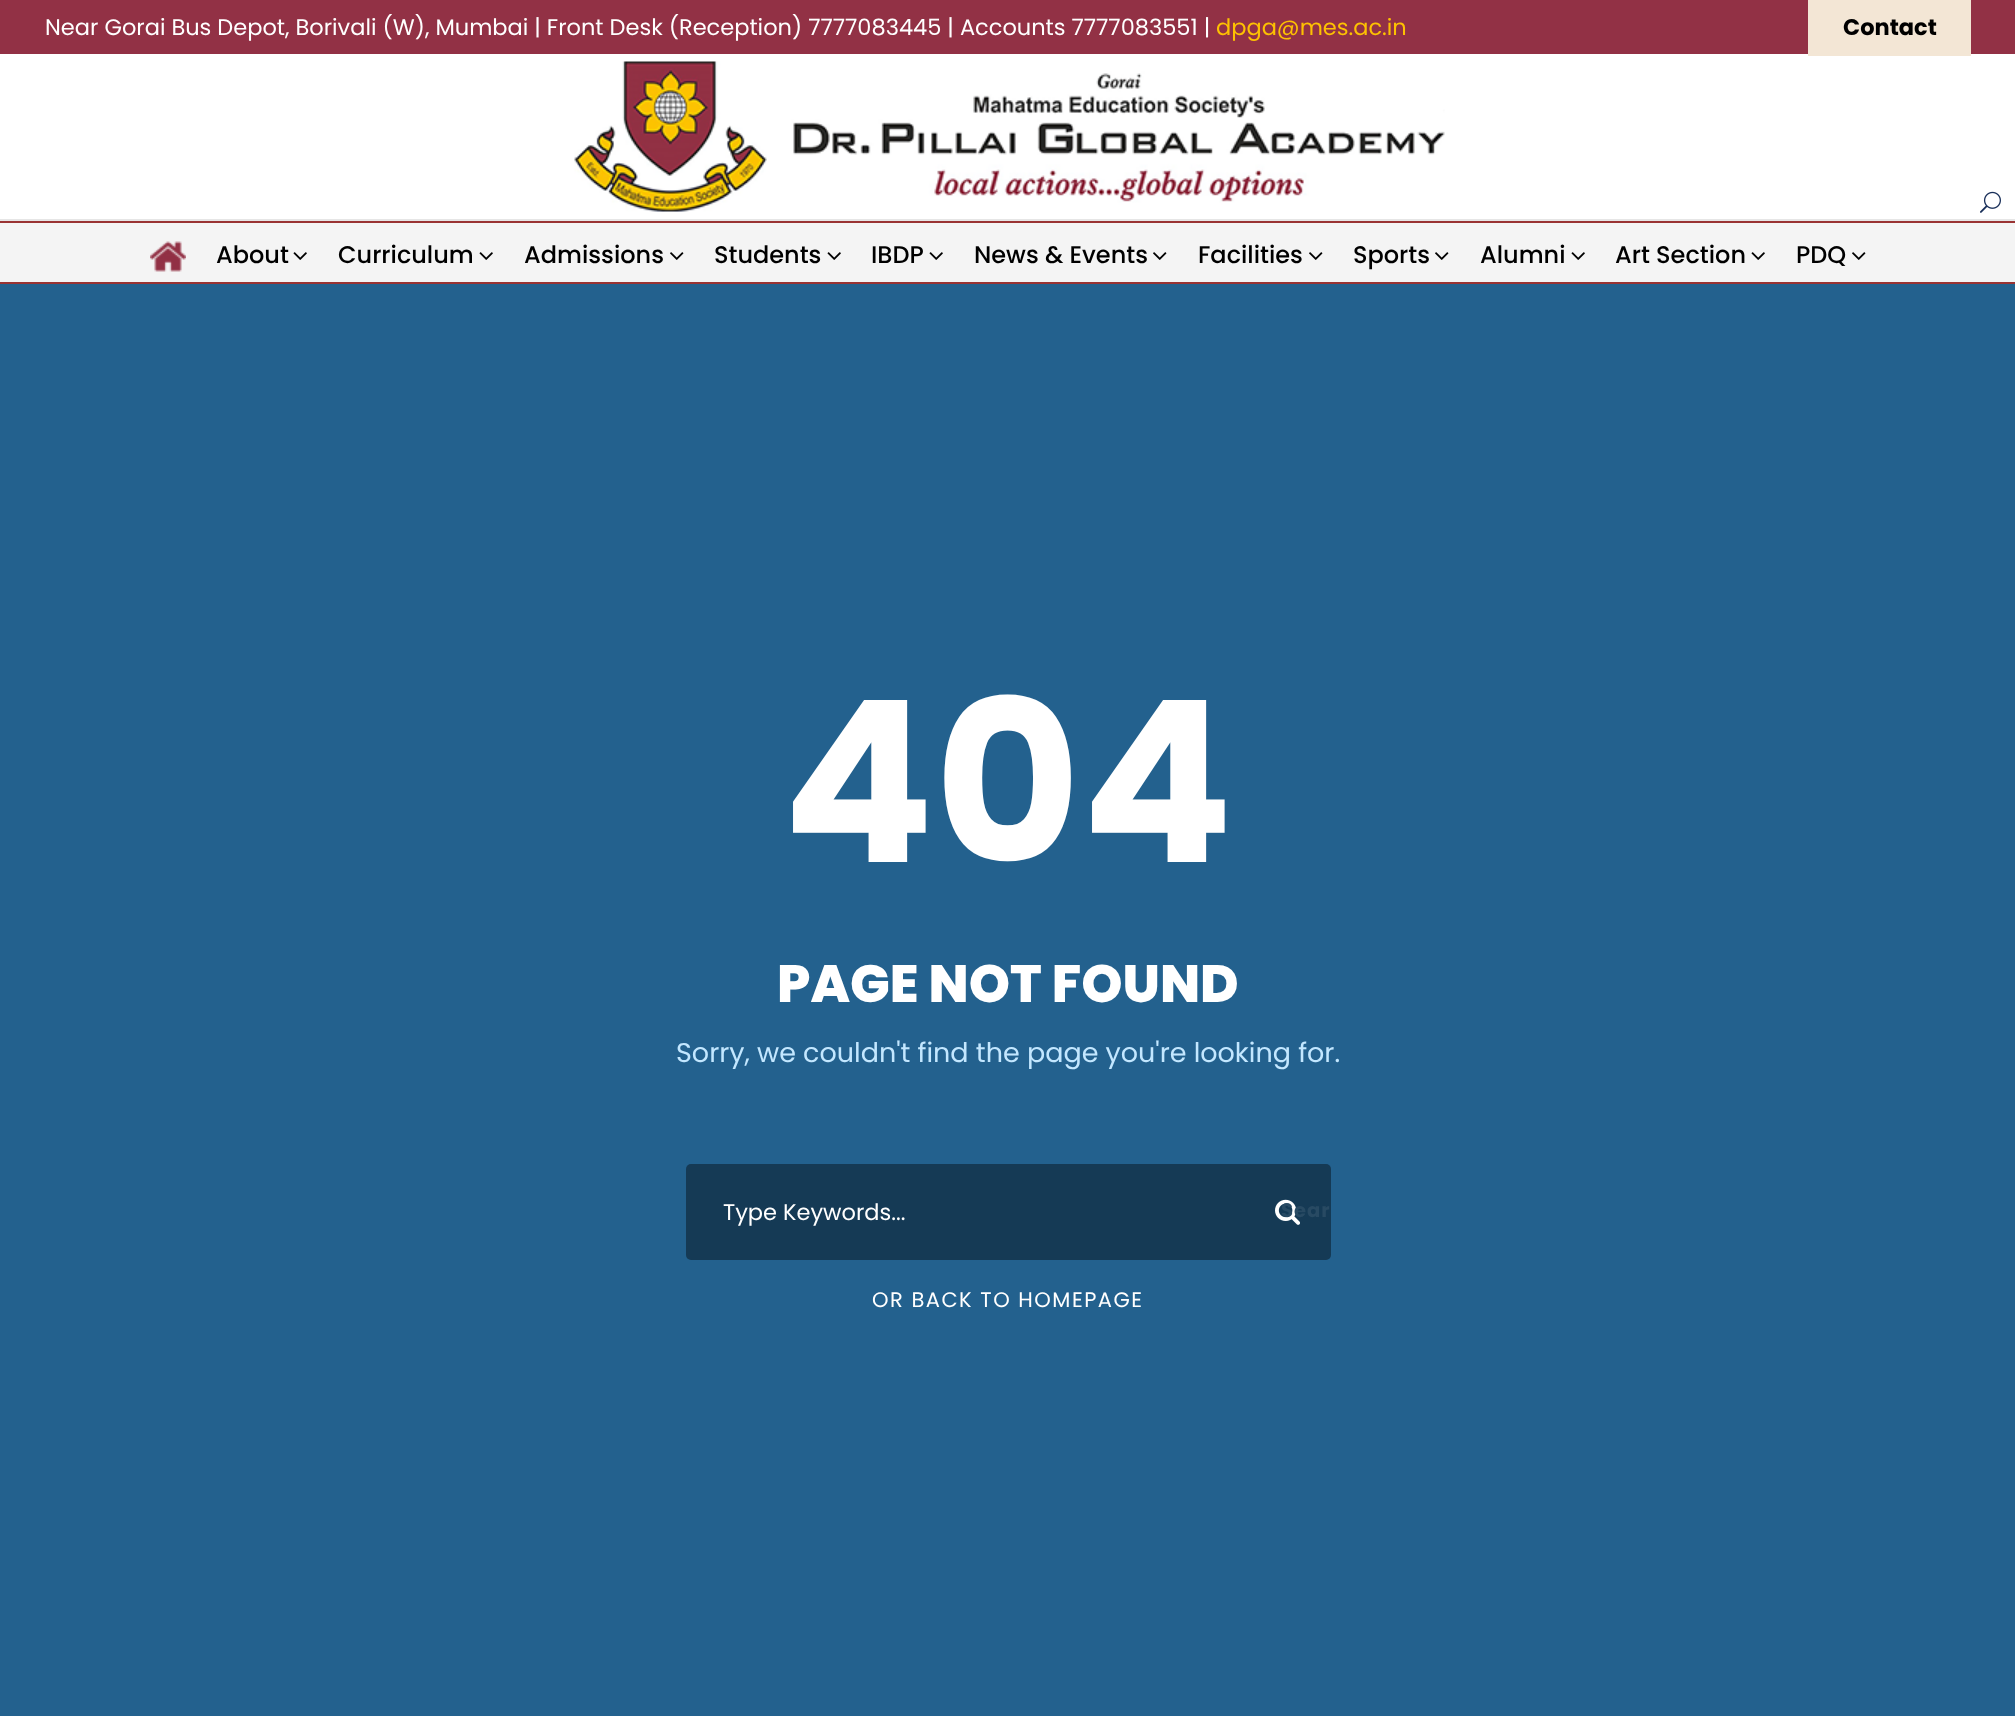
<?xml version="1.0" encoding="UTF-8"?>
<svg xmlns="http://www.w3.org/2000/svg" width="2015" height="1716">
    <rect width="100%" height="100%" fill="#FFFFFF"/>
    <rect x="0" y="0" width="2015" height="54" fill="#923145"/>
    <text x="45" y="35" font-family="Poppins" font-size="22.5" fill="#FFFFFF">Near Gorai Bus Depot, Borivali (W), Mumbai | Front Desk (Reception) 7777083445 | Accounts 7777083551 |</text>
    <text x="1216" y="35" font-family="Poppins" font-size="22.5" fill="#FDC102">dpga@mes.ac.in</text>
    <rect x="1808" y="0" width="163" height="56" fill="#F3E6D5"/>
    <text x="1843" y="35" font-family="Poppins" font-size="22.5" font-weight="700" fill="#000000">Contact</text>
    <image x="574" y="61" width="871" height="151" href="img_01.png"/>
    <rect x="0" y="219" width="2015" height="2" fill="#E6E6E6"/>
    <rect x="0" y="223" width="2015" height="59" fill="#F4F4F4"/>
    <rect x="0" y="221" width="2015" height="2" fill="#993333"/>
    <rect x="0" y="282" width="2015" height="2" fill="#993333"/>
    <image x="1980" y="191" width="21" height="22" href="img_02.png"/>
    <image x="150" y="241" width="36" height="31" href="img_03.png"/>
    <text x="216" y="263" font-family="Poppins" font-size="24" font-weight="500" fill="#000000">About</text>
    <image x="293" y="252" width="14" height="8" href="img_04.png"/>
    <text x="338" y="263" font-family="Poppins" font-size="24" font-weight="500" fill="#000000">Curriculum</text>
    <image x="479" y="252" width="14" height="8" href="img_04.png"/>
    <text x="524" y="263" font-family="Poppins" font-size="24" font-weight="500" fill="#000000">Admissions</text>
    <image x="670" y="252" width="14" height="8" href="img_05.png"/>
    <text x="714" y="263" font-family="Poppins" font-size="24" font-weight="500" fill="#000000">Students</text>
    <image x="827" y="252" width="14" height="8" href="img_04.png"/>
    <text x="871" y="263" font-family="Poppins" font-size="24" font-weight="500" fill="#000000">IBDP</text>
    <image x="929" y="252" width="14" height="8" href="img_04.png"/>
    <text x="974" y="263" font-family="Poppins" font-size="24" font-weight="500" fill="#000000">News &amp; Events</text>
    <image x="1153" y="252" width="14" height="8" href="img_05.png"/>
    <text x="1198" y="263" font-family="Poppins" font-size="24" font-weight="500" fill="#000000">Facilities</text>
    <image x="1309" y="252" width="14" height="8" href="img_05.png"/>
    <text x="1353" y="263" font-family="Poppins" font-size="24" font-weight="500" fill="#000000">Sports</text>
    <image x="1435" y="252" width="14" height="8" href="img_05.png"/>
    <text x="1480" y="263" font-family="Poppins" font-size="24" font-weight="500" fill="#000000">Alumni</text>
    <image x="1571" y="252" width="14" height="8" href="img_04.png"/>
    <text x="1615" y="263" font-family="Poppins" font-size="24" font-weight="500" fill="#000000">Art Section</text>
    <image x="1751" y="252" width="14" height="8" href="img_04.png"/>
    <text x="1796" y="263" font-family="Poppins" font-size="24" font-weight="500" fill="#000000">PDQ</text>
    <image x="1852" y="252" width="14" height="8" href="img_05.png"/>
    <rect x="0" y="284" width="2015" height="1432" fill="#23618E"/>
    <text x="782" y="862" font-family="Poppins" font-size="225" font-weight="700" fill="#FFFFFF">404</text>
    <text x="777" y="1002" font-family="Poppins" font-size="52.5" font-weight="800" fill="#FFFFFF">PAGE NOT FOUND</text>
    <text x="676" y="1062" font-family="Poppins" font-size="27" fill="#C3E7FF">Sorry, we couldn't find the page you're looking for.</text>
    <rect x="686" y="1164" width="645" height="96" rx="5" fill="#153A55"/>
    <text x="723" y="1220" font-family="Poppins" font-size="22.5" fill="#FFFFFF">Type Keywords...</text>
    <image x="1275" y="1199" width="25" height="26" href="img_06.png"/>
    <text x="1281" y="1217" font-family="Poppins" font-size="19.5" font-weight="700" letter-spacing="1" fill="#284A63">Sear</text>
    <text x="872" y="1307" font-family="Poppins" font-size="21" letter-spacing="1.5" fill="#FFFFFF">OR BACK TO HOMEPAGE</text>
</svg>
